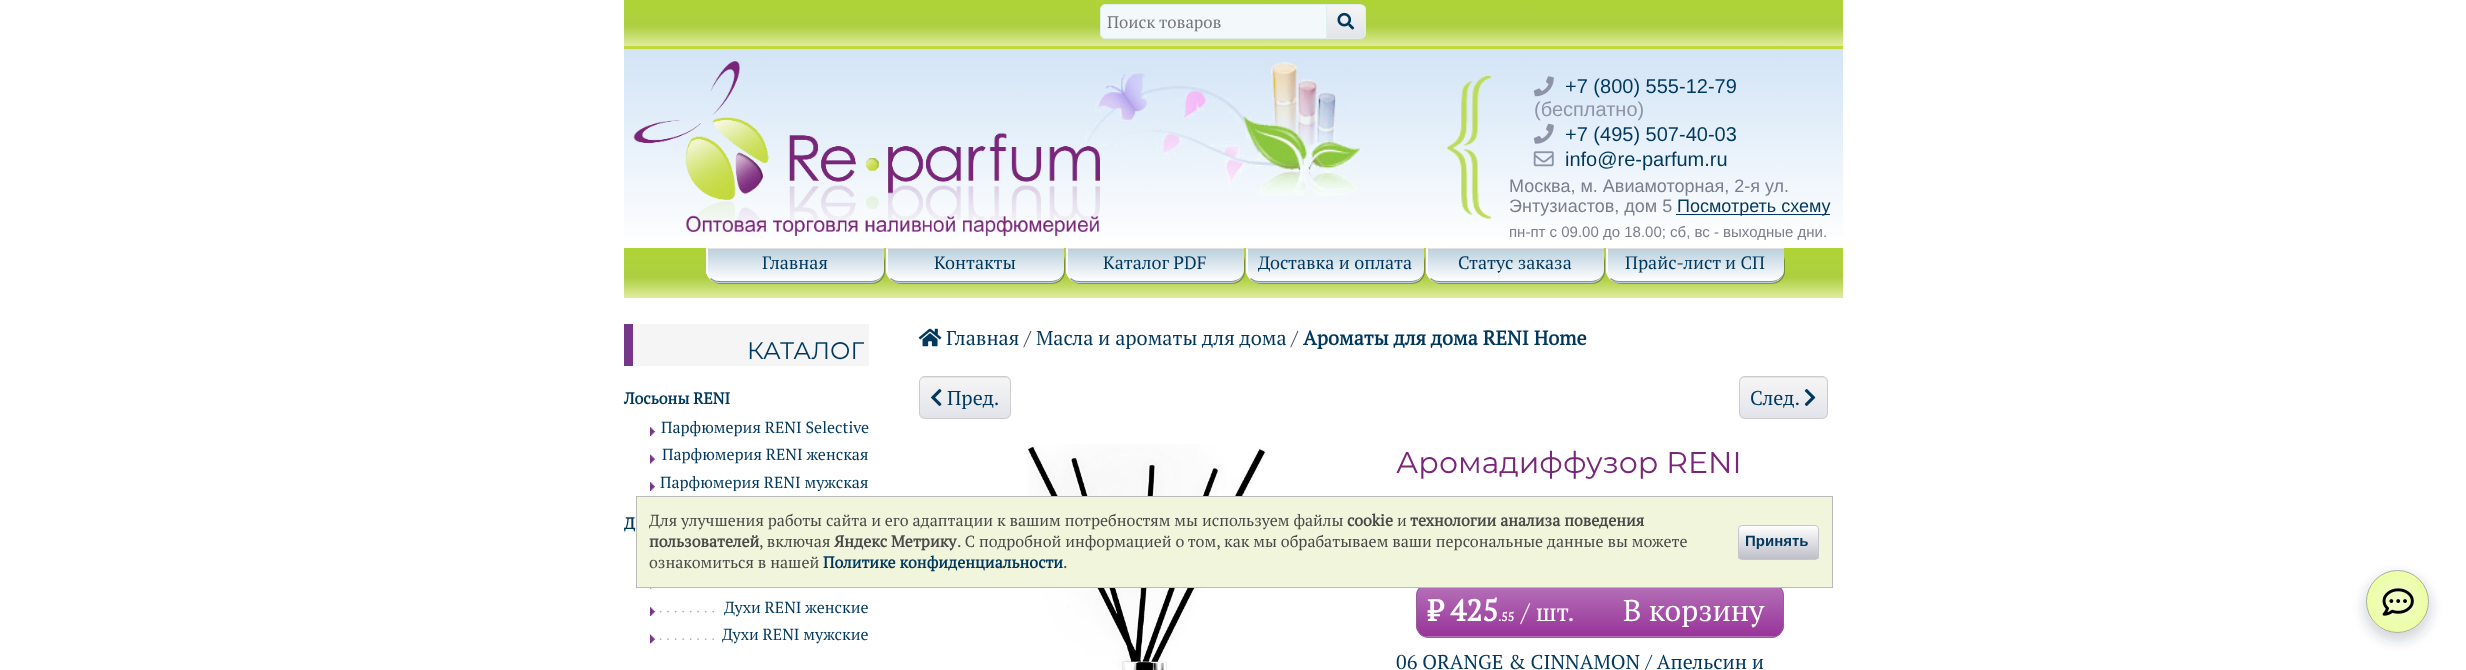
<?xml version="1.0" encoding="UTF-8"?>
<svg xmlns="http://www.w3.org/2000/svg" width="2466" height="670">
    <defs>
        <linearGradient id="g1" gradientUnits="userSpaceOnUse" x1="1233" y1="-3.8" x2="1233" y2="46"><stop offset="0" stop-color="#AFD436"/><stop offset="0.6" stop-color="#ADCF40"/><stop offset="1" stop-color="#E0EC9E"/></linearGradient>
        <clipPath id="clip1"><path d="M 1326 4 H 1360 C 1363.5 4 1366 6.5 1366 10 V 33 C 1366 36.5 1363.5 39 1360 39 H 1326 Z"/></clipPath>
        <linearGradient id="g2" gradientUnits="userSpaceOnUse" x1="1346" y1="38" x2="1346" y2="5"><stop offset="0" stop-color="#E2E4EA"/><stop offset="1" stop-color="#F5F5F5"/></linearGradient>
        <linearGradient id="g3" gradientUnits="userSpaceOnUse" x1="1233" y1="49" x2="1233" y2="248"><stop offset="0" stop-color="#D2E4F6"/><stop offset="1" stop-color="#FFFFFF"/></linearGradient>
        <linearGradient id="g4" gradientUnits="userSpaceOnUse" x1="1233" y1="247" x2="1233" y2="298"><stop offset="0" stop-color="#AFD436"/><stop offset="0.6" stop-color="#ADCF40"/><stop offset="1" stop-color="#E0EC9E"/></linearGradient>
        <filter id="blur1" x="-50%" y="-200%" width="200%" height="500%"><feGaussianBlur stdDeviation="0.5"/></filter>
        <clipPath id="clip2"><path d="M 706 248 H 884 V 270 C 884 277 878 283 871 283 H 719 C 712 283 706 277 706 270 Z"/></clipPath>
        <linearGradient id="g5" gradientUnits="userSpaceOnUse" x1="796" y1="281" x2="796" y2="249"><stop offset="0" stop-color="#FFFFFF"/><stop offset="1" stop-color="#BBD0DD"/></linearGradient>
        <linearGradient id="g6" gradientUnits="userSpaceOnUse" x1="796" y1="314" x2="796" y2="281"><stop offset="0" stop-color="#FFFFFF"/><stop offset="1" stop-color="#BBD0DD"/></linearGradient>
        <clipPath id="clip3"><path d="M 886 248 H 1064 V 270 C 1064 277 1058 283 1051 283 H 899 C 892 283 886 277 886 270 Z"/></clipPath>
        <linearGradient id="g7" gradientUnits="userSpaceOnUse" x1="976" y1="281" x2="976" y2="249"><stop offset="0" stop-color="#FFFFFF"/><stop offset="1" stop-color="#BBD0DD"/></linearGradient>
        <linearGradient id="g8" gradientUnits="userSpaceOnUse" x1="976" y1="314" x2="976" y2="281"><stop offset="0" stop-color="#FFFFFF"/><stop offset="1" stop-color="#BBD0DD"/></linearGradient>
        <clipPath id="clip4"><path d="M 1066 248 H 1244 V 270 C 1244 277 1238 283 1231 283 H 1079 C 1072 283 1066 277 1066 270 Z"/></clipPath>
        <linearGradient id="g9" gradientUnits="userSpaceOnUse" x1="1156" y1="281" x2="1156" y2="249"><stop offset="0" stop-color="#FFFFFF"/><stop offset="1" stop-color="#BBD0DD"/></linearGradient>
        <linearGradient id="g10" gradientUnits="userSpaceOnUse" x1="1156" y1="314" x2="1156" y2="281"><stop offset="0" stop-color="#FFFFFF"/><stop offset="1" stop-color="#BBD0DD"/></linearGradient>
        <clipPath id="clip5"><path d="M 1246 248 H 1424 V 270 C 1424 277 1418 283 1411 283 H 1259 C 1252 283 1246 277 1246 270 Z"/></clipPath>
        <linearGradient id="g11" gradientUnits="userSpaceOnUse" x1="1336" y1="281" x2="1336" y2="249"><stop offset="0" stop-color="#FFFFFF"/><stop offset="1" stop-color="#BBD0DD"/></linearGradient>
        <linearGradient id="g12" gradientUnits="userSpaceOnUse" x1="1336" y1="314" x2="1336" y2="281"><stop offset="0" stop-color="#FFFFFF"/><stop offset="1" stop-color="#BBD0DD"/></linearGradient>
        <clipPath id="clip6"><path d="M 1426 248 H 1604 V 270 C 1604 277 1598 283 1591 283 H 1439 C 1432 283 1426 277 1426 270 Z"/></clipPath>
        <linearGradient id="g13" gradientUnits="userSpaceOnUse" x1="1516" y1="281" x2="1516" y2="249"><stop offset="0" stop-color="#FFFFFF"/><stop offset="1" stop-color="#BBD0DD"/></linearGradient>
        <linearGradient id="g14" gradientUnits="userSpaceOnUse" x1="1516" y1="314" x2="1516" y2="281"><stop offset="0" stop-color="#FFFFFF"/><stop offset="1" stop-color="#BBD0DD"/></linearGradient>
        <clipPath id="clip7"><path d="M 1606 248 H 1784 V 270 C 1784 277 1778 283 1771 283 H 1619 C 1612 283 1606 277 1606 270 Z"/></clipPath>
        <linearGradient id="g15" gradientUnits="userSpaceOnUse" x1="1696" y1="281" x2="1696" y2="249"><stop offset="0" stop-color="#FFFFFF"/><stop offset="1" stop-color="#BBD0DD"/></linearGradient>
        <linearGradient id="g16" gradientUnits="userSpaceOnUse" x1="1696" y1="314" x2="1696" y2="281"><stop offset="0" stop-color="#FFFFFF"/><stop offset="1" stop-color="#BBD0DD"/></linearGradient>
        <clipPath id="clip8"><rect x="624" y="409" width="245" height="82"/></clipPath>
        <clipPath id="clip9"><rect x="919" y="376" width="92" height="43" rx="6"/></clipPath>
        <linearGradient id="g17" gradientUnits="userSpaceOnUse" x1="965" y1="378" x2="965" y2="338"><stop offset="0" stop-color="#E2E4EA"/><stop offset="1" stop-color="#F5F5F5"/></linearGradient>
        <linearGradient id="g18" gradientUnits="userSpaceOnUse" x1="965" y1="418" x2="965" y2="378"><stop offset="0" stop-color="#E2E4EA"/><stop offset="1" stop-color="#F5F5F5"/></linearGradient>
        <clipPath id="clip10"><rect x="1739" y="376" width="89" height="43" rx="6"/></clipPath>
        <linearGradient id="g19" gradientUnits="userSpaceOnUse" x1="1783" y1="378" x2="1783" y2="338"><stop offset="0" stop-color="#E2E4EA"/><stop offset="1" stop-color="#F5F5F5"/></linearGradient>
        <linearGradient id="g20" gradientUnits="userSpaceOnUse" x1="1783" y1="418" x2="1783" y2="378"><stop offset="0" stop-color="#E2E4EA"/><stop offset="1" stop-color="#F5F5F5"/></linearGradient>
        <clipPath id="clip11"><rect x="1416" y="583" width="368" height="55" rx="13"/></clipPath>
        <linearGradient id="g21" gradientUnits="userSpaceOnUse" x1="1600" y1="584" x2="1600" y2="636"><stop offset="0" stop-color="#B673B9"/><stop offset="1" stop-color="#983499"/></linearGradient>
        <linearGradient id="g22" gradientUnits="userSpaceOnUse" x1="1600" y1="636" x2="1600" y2="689"><stop offset="0" stop-color="#B673B9"/><stop offset="1" stop-color="#983499"/></linearGradient>
        <clipPath id="clip12"><rect x="1738" y="525" width="81" height="35" rx="4"/></clipPath>
        <linearGradient id="g23" gradientUnits="userSpaceOnUse" x1="1778" y1="526" x2="1778" y2="558"><stop offset="0" stop-color="#FFFFFF"/><stop offset="1" stop-color="#C0C0CA"/></linearGradient>
        <clipPath id="clip13"><path d="M 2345 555 H 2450 V 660 H 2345 Z M 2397.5 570 C 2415 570 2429 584 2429 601.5 C 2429 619 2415 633 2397.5 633 C 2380 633 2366 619 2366 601.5 C 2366 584 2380 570 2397.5 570 Z" clip-rule="evenodd"/></clipPath>
        <filter id="blur2" x="-50%" y="-200%" width="200%" height="500%"><feGaussianBlur stdDeviation="6"/></filter>
        <clipPath id="clip14"><rect x="2366" y="570" width="63" height="63" rx="31.5"/></clipPath>
        <radialGradient id="g24" gradientUnits="userSpaceOnUse" cx="2338" cy="601" r="42"><stop offset="0" stop-color="#F3FBD1"/><stop offset="1" stop-color="#E3FF7A" stop-opacity="0.75"/></radialGradient>
        <radialGradient id="g25" gradientUnits="userSpaceOnUse" cx="2398" cy="601" r="42"><stop offset="0" stop-color="#F3FBD1"/><stop offset="1" stop-color="#E3FF7A" stop-opacity="0.75"/></radialGradient>
        <radialGradient id="g26" gradientUnits="userSpaceOnUse" cx="2398" cy="661" r="42"><stop offset="0" stop-color="#F3FBD1"/><stop offset="1" stop-color="#E3FF7A" stop-opacity="0.75"/></radialGradient>
    </defs>
    <rect width="100%" height="100%" fill="#FFFFFF"/>
    <rect x="624" y="0" width="1219" height="46" fill="url(#g1)"/>
    <rect x="624" y="46" width="1219" height="3" fill="#C2D93C"/>
    <path d="M 1105 4.5 H 1327.5 V 38.5 H 1105 C 1102.5 38.5 1100.5 36.5 1100.5 34 V 9 C 1100.5 6.5 1102.5 4.5 1105 4.5 Z" fill="#F3F9FB" stroke="#E0EEEE"/>
    <text x="1107" y="28" font-family="PT Serif" font-size="16.75" fill="#757575">Поиск товаров</text>
    <g clip-path="url(#clip1)">
        <rect x="1327" y="5" width="39" height="33" fill="url(#g2)"/>
    </g>
    <path d="M 1326.5 4.5 H 1360 C 1363 4.5 1365.5 7 1365.5 10 V 33 C 1365.5 36 1363 38.5 1360 38.5 H 1326.5 Z" fill="none" stroke="#E0EEEE"/>
    <image x="1337" y="12" width="18" height="18" href="img_01.png"/>
    <rect x="624" y="49" width="1219" height="188" fill="url(#g3)"/>
    <image x="1085" y="62" width="278" height="134" href="img_02.png"/>
    <image x="633" y="61" width="467" height="175" href="img_03.png"/>
    <image x="1446" y="76" width="46" height="143" href="img_04.png"/>
    <image x="1533" y="76" width="21" height="21" href="img_05.png"/>
    <text x="1565" y="93" font-family="Liberation Sans" font-size="20" fill="#00385E">+7 (800) 555-12-79</text>
    <text x="1534" y="116" font-family="Liberation Sans" font-size="20" fill="#8F93A8">(бесплатно)</text>
    <image x="1533" y="123" width="21" height="21" href="img_06.png"/>
    <text x="1565" y="141" font-family="Liberation Sans" font-size="20" fill="#00385E">+7 (495) 507-40-03</text>
    <image x="1533" y="151" width="21" height="16" href="img_07.png"/>
    <text x="1565" y="166" font-family="Liberation Sans" font-size="20" fill="#00385E">info@re-parfum.ru</text>
    <text font-family="Liberation Sans" font-size="18" fill="#7B7F8D">
        <tspan x="1509" y="192">Москва, м. Авиамоторная, 2-я ул.</tspan>
        <tspan x="1509" y="212">Энтузиастов, дом 5</tspan>
    </text>
    <rect x="1676" y="214" width="154" height="1" fill="#00385E"/>
    <text x="1677" y="212" font-family="Liberation Sans" font-size="18" fill="#00385E">Посмотреть схему</text>
    <text x="1509" y="237" font-family="Liberation Sans" font-size="15" fill="#7B7F8D">пн-пт с 09.00 до 18.00; сб, вс - выходные дни.</text>
    <rect x="624" y="248" width="1219" height="50" fill="url(#g4)"/>
    <rect x="708" y="249" width="177" height="35" rx="13" fill="#000000" fill-opacity="0.31" filter="url(#blur1)"/>
    <g clip-path="url(#clip2)">
        <rect x="706" y="249" width="178" height="32" fill="url(#g5)"/>
        <rect x="706" y="281" width="178" height="2" fill="url(#g6)"/>
    </g>
    <path d="M 708 249 L 707 248 H 884 V 249 Z" fill="#E3E3E3"/>
    <path d="M 884 272 C 883 278 877 282 871 282 H 719 C 716 282 712 281 710 279 L 711 278 C 713 280 716 281 719 281 H 871 C 877 281 883 277 884 272 Z" fill="#8F8F8F"/>
    <path d="M 711 277.5 L 710 278.5 C 708 277 707 275 706 272.5 V 248 H 707 L 708 249 V 270 C 708 273 709 275.5 711 277.5 Z" fill="#FFFFFF"/>
    <text x="762" y="269" font-family="PT Serif" font-size="18" fill="#00385E">Главная</text>
    <rect x="888" y="249" width="177" height="35" rx="13" fill="#000000" fill-opacity="0.31" filter="url(#blur1)"/>
    <g clip-path="url(#clip3)">
        <rect x="886" y="249" width="178" height="32" fill="url(#g7)"/>
        <rect x="886" y="281" width="178" height="2" fill="url(#g8)"/>
    </g>
    <path d="M 888 249 L 887 248 H 1064 V 249 Z" fill="#E3E3E3"/>
    <path d="M 1064 272 C 1063 278 1057 282 1051 282 H 899 C 896 282 892 281 890 279 L 891 278 C 893 280 896 281 899 281 H 1051 C 1057 281 1063 277 1064 272 Z" fill="#8F8F8F"/>
    <path d="M 891 277.5 L 890 278.5 C 888 277 887 275 886 272.5 V 248 H 887 L 888 249 V 270 C 888 273 889 275.5 891 277.5 Z" fill="#FFFFFF"/>
    <text x="934" y="269" font-family="PT Serif" font-size="18" fill="#00385E">Контакты</text>
    <rect x="1068" y="249" width="177" height="35" rx="13" fill="#000000" fill-opacity="0.31" filter="url(#blur1)"/>
    <g clip-path="url(#clip4)">
        <rect x="1066" y="249" width="178" height="32" fill="url(#g9)"/>
        <rect x="1066" y="281" width="178" height="2" fill="url(#g10)"/>
    </g>
    <path d="M 1068 249 L 1067 248 H 1244 V 249 Z" fill="#E3E3E3"/>
    <path d="M 1244 272 C 1243 278 1237 282 1231 282 H 1079 C 1076 282 1072 281 1070 279 L 1071 278 C 1073 280 1076 281 1079 281 H 1231 C 1237 281 1243 277 1244 272 Z" fill="#8F8F8F"/>
    <path d="M 1071 277.5 L 1070 278.5 C 1068 277 1067 275 1066 272.5 V 248 H 1067 L 1068 249 V 270 C 1068 273 1069 275.5 1071 277.5 Z" fill="#FFFFFF"/>
    <text x="1103" y="269" font-family="PT Serif" font-size="18" fill="#00385E">Каталог PDF</text>
    <rect x="1248" y="249" width="177" height="35" rx="13" fill="#000000" fill-opacity="0.31" filter="url(#blur1)"/>
    <g clip-path="url(#clip5)">
        <rect x="1246" y="249" width="178" height="32" fill="url(#g11)"/>
        <rect x="1246" y="281" width="178" height="2" fill="url(#g12)"/>
    </g>
    <path d="M 1248 249 L 1247 248 H 1424 V 249 Z" fill="#E3E3E3"/>
    <path d="M 1424 272 C 1423 278 1417 282 1411 282 H 1259 C 1256 282 1252 281 1250 279 L 1251 278 C 1253 280 1256 281 1259 281 H 1411 C 1417 281 1423 277 1424 272 Z" fill="#8F8F8F"/>
    <path d="M 1251 277.5 L 1250 278.5 C 1248 277 1247 275 1246 272.5 V 248 H 1247 L 1248 249 V 270 C 1248 273 1249 275.5 1251 277.5 Z" fill="#FFFFFF"/>
    <text x="1258" y="269" font-family="PT Serif" font-size="18" fill="#00385E">Доставка и оплата</text>
    <rect x="1428" y="249" width="177" height="35" rx="13" fill="#000000" fill-opacity="0.31" filter="url(#blur1)"/>
    <g clip-path="url(#clip6)">
        <rect x="1426" y="249" width="178" height="32" fill="url(#g13)"/>
        <rect x="1426" y="281" width="178" height="2" fill="url(#g14)"/>
    </g>
    <path d="M 1428 249 L 1427 248 H 1604 V 249 Z" fill="#E3E3E3"/>
    <path d="M 1604 272 C 1603 278 1597 282 1591 282 H 1439 C 1436 282 1432 281 1430 279 L 1431 278 C 1433 280 1436 281 1439 281 H 1591 C 1597 281 1603 277 1604 272 Z" fill="#8F8F8F"/>
    <path d="M 1431 277.5 L 1430 278.5 C 1428 277 1427 275 1426 272.5 V 248 H 1427 L 1428 249 V 270 C 1428 273 1429 275.5 1431 277.5 Z" fill="#FFFFFF"/>
    <text x="1458" y="269" font-family="PT Serif" font-size="18" fill="#00385E">Статус заказа</text>
    <rect x="1608" y="249" width="177" height="35" rx="13" fill="#000000" fill-opacity="0.31" filter="url(#blur1)"/>
    <g clip-path="url(#clip7)">
        <rect x="1606" y="249" width="178" height="32" fill="url(#g15)"/>
        <rect x="1606" y="281" width="178" height="2" fill="url(#g16)"/>
    </g>
    <path d="M 1608 249 L 1607 248 H 1784 V 249 Z" fill="#E3E3E3"/>
    <path d="M 1784 272 C 1783 278 1777 282 1771 282 H 1619 C 1616 282 1612 281 1610 279 L 1611 278 C 1613 280 1616 281 1619 281 H 1771 C 1777 281 1783 277 1784 272 Z" fill="#8F8F8F"/>
    <path d="M 1611 277.5 L 1610 278.5 C 1608 277 1607 275 1606 272.5 V 248 H 1607 L 1608 249 V 270 C 1608 273 1609 275.5 1611 277.5 Z" fill="#FFFFFF"/>
    <text x="1625" y="269" font-family="PT Serif" font-size="18" fill="#00385E">Прайс-лист и СП</text>
    <rect x="633" y="324" width="236" height="42" fill="#F5F5F5"/>
    <rect x="624" y="324" width="9" height="42" fill="#76368A"/>
    <text x="747" y="359" font-family="Montserrat" font-size="24" fill="#00385E">КАТАЛОГ</text>
    <text x="624" y="404" font-family="PT Serif" font-size="16" font-weight="700" fill="#00385E">Лосьоны RENI</text>
    <image x="650" y="427" width="6" height="9" href="img_08.png"/>
    <text x="661" y="433" font-family="PT Serif" font-size="16" fill="#00385E">Парфюмерия RENI Selective</text>
    <image x="650" y="454" width="8" height="10" href="img_09.png"/>
    <text x="662" y="460" font-family="PT Serif" font-size="16" fill="#00385E">Парфюмерия RENI женская</text>
    <image x="650" y="482" width="5" height="9" href="img_10.png"/>
    <g clip-path="url(#clip8)">
        <text x="660" y="488" font-family="PT Serif" font-size="16" fill="#00385E">Парфюмерия RENI мужская</text>
    </g>
    <text x="624" y="529" font-family="PT Serif" font-size="16" font-weight="700" fill="#00385E">Д</text>
    <image x="650" y="588" width="69" height="1" href="img_11.png"/>
    <image x="650" y="607" width="69" height="9" href="img_12.png"/>
    <text x="724" y="613" font-family="PT Serif" font-size="16" fill="#00385E">Духи RENI женские</text>
    <image x="650" y="634" width="68" height="10" href="img_13.png"/>
    <text x="722" y="640" font-family="PT Serif" font-size="16" fill="#00385E">Духи RENI мужские</text>
    <image x="918" y="328" width="24" height="19" href="img_14.png"/>
    <text x="946" y="345" font-family="PT Serif" font-size="20" fill="#00385E">Главная</text>
    <text x="1024" y="345" font-family="PT Serif" font-size="20" fill="#494949">/</text>
    <text x="1036" y="345" font-family="PT Serif" font-size="20" fill="#00385E">Масла и ароматы для дома</text>
    <text x="1291" y="345" font-family="PT Serif" font-size="20" fill="#494949">/</text>
    <text x="1303" y="345" font-family="PT Serif" font-size="20" font-weight="700" fill="#00385E">Ароматы для дома RENI Home</text>
    <g clip-path="url(#clip9)">
        <rect x="919" y="376" width="92" height="2" fill="url(#g17)"/>
        <rect x="919" y="378" width="92" height="40" fill="url(#g18)"/>
    </g>
    <rect x="919.5" y="376.5" width="91" height="42" rx="5.5" fill="none" stroke="#CCCCCC"/>
    <image x="931" y="389" width="11" height="17" href="img_15.png"/>
    <text x="947" y="405" font-family="PT Serif" font-size="20" fill="#00385E">Пред.</text>
    <g clip-path="url(#clip10)">
        <rect x="1739" y="376" width="89" height="2" fill="url(#g19)"/>
        <rect x="1739" y="378" width="89" height="40" fill="url(#g20)"/>
    </g>
    <rect x="1739.5" y="376.5" width="88" height="42" rx="5.5" fill="none" stroke="#CCCCCC"/>
    <text x="1750" y="405" font-family="PT Serif" font-size="20" fill="#00385E">След.</text>
    <image x="1804" y="389" width="12" height="17" href="img_16.png"/>
    <image x="1027" y="444" width="239" height="226" href="img_17.png"/>
    <text x="1396" y="473" font-family="Montserrat" font-size="30" fill="#792579">Аромадиффузор RENI</text>
    <g clip-path="url(#clip11)">
        <rect x="1416" y="588" width="368" height="48" fill="url(#g21)"/>
        <rect x="1416" y="636" width="368" height="2" fill="url(#g22)"/>
    </g>
    <rect x="1416.5" y="583.5" width="367" height="54" rx="12.5" fill="none" stroke="#975C98"/>
    <text x="1427" y="621" font-family="PT Serif" font-size="30" font-weight="700" fill="#FFFFFF">₽ 425</text>
    <text x="1498" y="621" font-family="PT Serif" font-size="12" font-weight="700" fill="#FFFFFF">.55</text>
    <text x="1521" y="621" font-family="PT Serif" font-size="25" fill="#FFFFFF">/ шт.</text>
    <text x="1623" y="621" font-family="PT Serif" font-size="30" fill="#FFFFFF">В корзину</text>
    <text x="1396" y="669" font-family="PT Serif" font-size="20" fill="#00385E">06 ORANGE &amp; CINNAMON / Апельсин и</text>
    <rect x="636.5" y="496.5" width="1196" height="91" fill="#F1F5DB" stroke="#BBBBBB"/>
    <text x="649" y="526" font-family="PT Serif" font-size="16" fill="#494949">Для улучшения работы сайта и его адаптации к вашим потребностям мы используем файлы</text>
    <text x="1347" y="526" font-family="PT Serif" font-size="16" font-weight="700" fill="#494949">cookie</text>
    <text x="1397" y="526" font-family="PT Serif" font-size="16" fill="#494949">и</text>
    <text x="1410" y="526" font-family="PT Serif" font-size="16" font-weight="700" fill="#494949">технологии анализа поведения</text>
    <text x="649" y="547" font-family="PT Serif" font-size="16" font-weight="700" fill="#494949">пользователей</text>
    <text x="759" y="547" font-family="PT Serif" font-size="16" fill="#494949">, включая</text>
    <text x="834" y="547" font-family="PT Serif" font-size="16" font-weight="700" fill="#494949">Яндекс Метрику</text>
    <text x="957" y="547" font-family="PT Serif" font-size="16" fill="#494949">. С подробной информацией о том, как мы обрабатываем ваши персональные данные вы можете</text>
    <text x="649" y="568" font-family="PT Serif" font-size="16" fill="#494949">ознакомиться в нашей</text>
    <text x="823" y="568" font-family="PT Serif" font-size="16" font-weight="700" fill="#00385E">Политике конфиденциальности</text>
    <text x="1063" y="568" font-family="PT Serif" font-size="16" fill="#494949">.</text>
    <g clip-path="url(#clip12)">
        <rect x="1738" y="526" width="81" height="33" fill="url(#g23)"/>
    </g>
    <rect x="1738.5" y="525.5" width="80" height="34" rx="3.5" fill="none" stroke="#C5C7CD"/>
    <text x="1745" y="546" font-family="Liberation Sans" font-size="15" font-weight="700" fill="#00385E">Принять</text>
    <g clip-path="url(#clip13)">
        <rect x="2364" y="574" width="67" height="67" rx="33.5" fill="#223C50" fill-opacity="0.2" filter="url(#blur2)"/>
    </g>
    <g clip-path="url(#clip14)">
        <rect x="2366" y="590" width="2" height="23" fill="url(#g24)"/>
        <rect x="2368" y="571" width="60" height="60" fill="url(#g25)"/>
        <rect x="2386" y="631" width="23" height="2" fill="url(#g26)"/>
    </g>
    <circle cx="2397.5" cy="601.5" r="31" fill="none" stroke="#AAAAAA"/>
    <image x="2382" y="588" width="32" height="28" href="img_18.png"/>
</svg>
